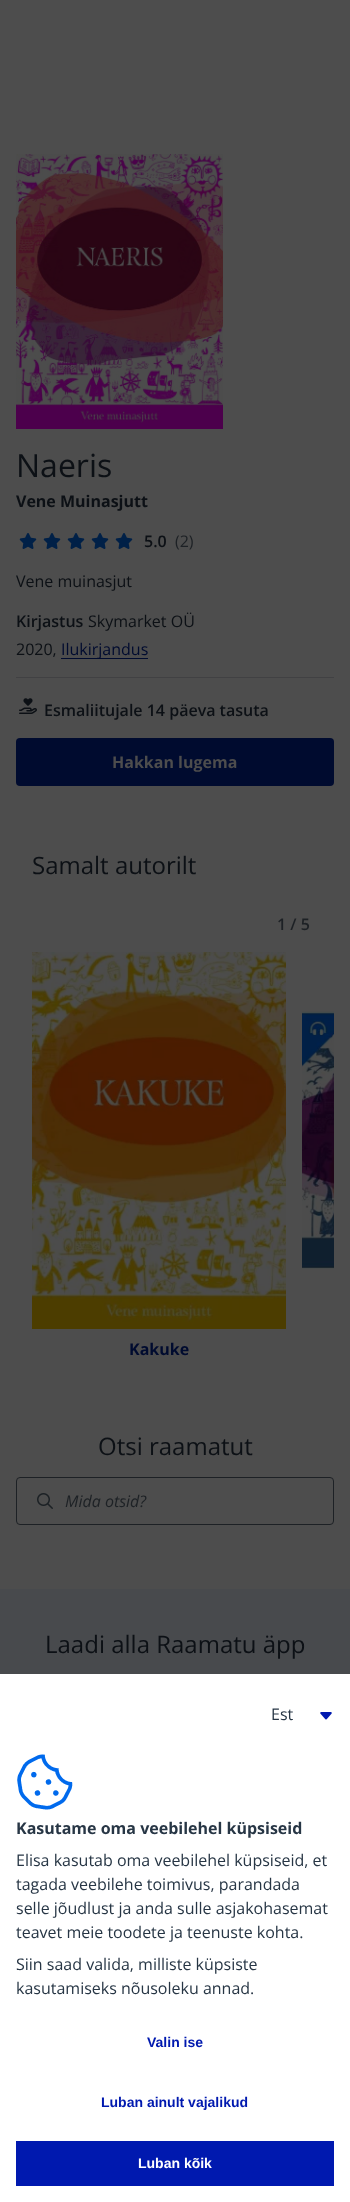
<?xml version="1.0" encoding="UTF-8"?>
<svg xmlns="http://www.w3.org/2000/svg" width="350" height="2202">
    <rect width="100%" height="100%" fill="#4D4D4D"/>
    <image x="16" y="154" width="207" height="275" href="img_01.png"/>
    <text x="16" y="477" font-family="Open Sans" font-size="32" fill="#0C1015">Naeris</text>
    <text x="16" y="507" font-family="Open Sans" font-size="16" font-weight="700" fill="#0C1015">Vene Muinasjutt</text>
    <image x="19" y="533" width="18" height="16" href="img_02.png"/>
    <image x="43" y="533" width="18" height="16" href="img_02.png"/>
    <image x="67" y="533" width="18" height="16" href="img_02.png"/>
    <image x="91" y="533" width="18" height="16" href="img_02.png"/>
    <image x="115" y="533" width="18" height="16" href="img_02.png"/>
    <text x="144" y="547" font-family="Open Sans" font-size="16" font-weight="600" fill="#0C1015">5.0</text>
    <text x="175" y="547" font-family="Open Sans" font-size="16" fill="#1D2125">(2)</text>
    <text x="16" y="587" font-family="Open Sans" font-size="16" fill="#0C1015">Vene muinasjut</text>
    <text x="88" y="627" font-family="Open Sans" font-size="16" fill="#0C1015">Skymarket OÜ</text>
    <text x="16" y="655" font-family="Open Sans" font-size="16" fill="#0C1015">2020,</text>
    <rect x="61" y="658" width="87" height="1" fill="#000B2F"/>
    <text x="61" y="655" font-family="Open Sans" font-size="16" fill="#000B2F">Ilukirjandus</text>
    <text x="16" y="627" font-family="Open Sans" font-size="16" font-weight="600" fill="#0C1015">Kirjastus</text>
    <rect x="16" y="677" width="318" height="1" fill="#414143"/>
    <image x="19" y="698" width="18" height="16" href="img_03.png"/>
    <text x="44" y="716" font-family="Open Sans" font-size="16" font-weight="600" fill="#0C1015">Esmaliitujale 14 päeva tasuta</text>
    <rect x="16" y="738" width="318" height="48" rx="4" fill="#000B2F"/>
    <text x="112" y="768" font-family="Open Sans" font-size="16" font-weight="700" fill="#4D4D4D">Hakkan lugema</text>
    <text x="32" y="874" font-family="Open Sans" font-size="24" fill="#0C1015">Samalt autorilt</text>
    <text x="277" y="930" font-family="Open Sans" font-size="16" font-weight="600" fill="#1D2125">1 / 5</text>
    <image x="302" y="1011" width="32" height="258" href="img_04.png"/>
    <image x="32" y="952" width="254" height="377" href="img_05.png"/>
    <text x="129" y="1355" font-family="Open Sans" font-size="16" font-weight="700" fill="#000B2F">Kakuke</text>
    <text x="98" y="1455" font-family="Open Sans" font-size="24" fill="#0C1015">Otsi raamatut</text>
    <rect x="16.5" y="1477.5" width="317" height="47" rx="3.5" fill="none" stroke="#1D2125"/>
    <image x="37" y="1493" width="16" height="16" href="img_06.png"/>
    <text x="65" y="1507" font-family="Open Sans" font-size="16" font-style="italic" fill="#1D2125">Mida otsid?</text>
    <rect x="0" y="1589" width="350" height="85" fill="#484A4D"/>
    <text x="45" y="1653" font-family="Open Sans" font-size="24" fill="#0C1015">Laadi alla Raamatu äpp</text>
    <rect x="0" y="1674" width="350" height="528" fill="#FFFFFF"/>
    <text x="271" y="1720" font-family="Open Sans" font-size="16" fill="#273645">Est</text>
    <image x="320" y="1712" width="12" height="8" href="img_07.png"/>
    <image x="17" y="1754" width="56" height="56" href="img_08.png"/>
    <text x="16" y="1834" font-family="Open Sans" font-size="16" font-weight="700" fill="#273645">Kasutame oma veebilehel küpsiseid</text>
    <text font-family="Open Sans" font-size="16" fill="#273645">
        <tspan x="16" y="1866">Elisa kasutab oma veebilehel küpsiseid, et</tspan>
        <tspan x="16" y="1890">tagada veebilehe toimivus, parandada</tspan>
        <tspan x="16" y="1914">selle jõudlust ja anda sulle asjakohasemat</tspan>
        <tspan x="16" y="1938">teavet meie toodete ja teenuste kohta.</tspan>
    </text>
    <text font-family="Open Sans" font-size="16" fill="#273645">
        <tspan x="16" y="1970">Siin saad valida, milliste küpsiste</tspan>
        <tspan x="16" y="1994">kasutamiseks nõusoleku annad.</tspan>
    </text>
    <text x="147" y="2047" font-family="Liberation Sans" font-size="14" font-weight="700" fill="#0019AF">Valin ise</text>
    <text x="101" y="2107" font-family="Liberation Sans" font-size="14" font-weight="700" fill="#0019AF">Luban ainult vajalikud</text>
    <rect x="16" y="2141" width="318" height="45" fill="#0019AF"/>
    <text x="138" y="2168" font-family="Liberation Sans" font-size="14" font-weight="700" fill="#FFFFFF">Luban kõik</text>
</svg>
